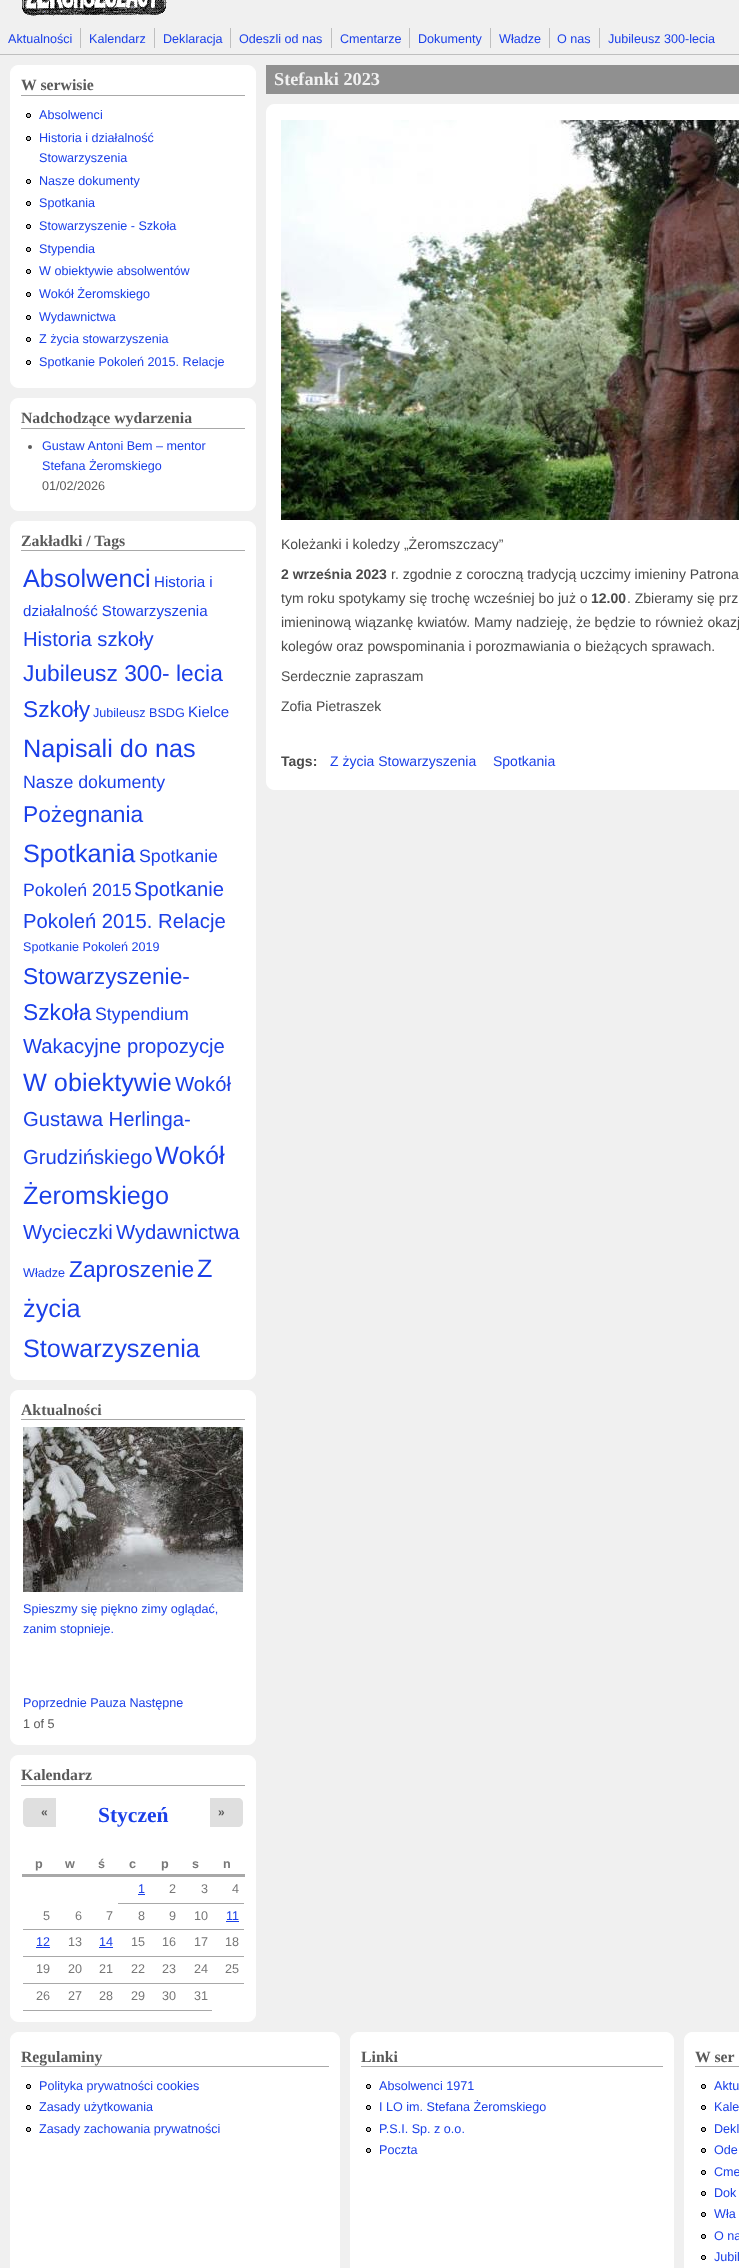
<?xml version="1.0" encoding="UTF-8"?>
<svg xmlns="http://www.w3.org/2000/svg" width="739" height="2268">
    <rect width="100%" height="100%" fill="#F0F0F0"/>
    <image x="22" y="0" width="145" height="16" href="img_01.png"/>
    <rect x="0" y="54" width="739" height="1" fill="#BFBFBF"/>
    <text x="8" y="43" font-family="Liberation Sans" font-size="12.6" fill="#1B40E9">Aktualności</text>
    <rect x="80" y="28" width="1" height="20" fill="#BFBFBF"/>
    <text x="89" y="43" font-family="Liberation Sans" font-size="12.6" fill="#1B40E9">Kalendarz</text>
    <rect x="154" y="28" width="1" height="20" fill="#BFBFBF"/>
    <text x="163" y="43" font-family="Liberation Sans" font-size="12.6" fill="#1B40E9">Deklaracja</text>
    <rect x="230" y="28" width="1" height="20" fill="#BFBFBF"/>
    <text x="239" y="43" font-family="Liberation Sans" font-size="12.6" fill="#1B40E9">Odeszli od nas</text>
    <rect x="331" y="28" width="1" height="20" fill="#BFBFBF"/>
    <text x="340" y="43" font-family="Liberation Sans" font-size="12.6" fill="#1B40E9">Cmentarze</text>
    <rect x="409" y="28" width="1" height="20" fill="#BFBFBF"/>
    <text x="418" y="43" font-family="Liberation Sans" font-size="12.6" fill="#1B40E9">Dokumenty</text>
    <rect x="490" y="28" width="1" height="20" fill="#BFBFBF"/>
    <text x="499" y="43" font-family="Liberation Sans" font-size="12.6" fill="#1B40E9">Władze</text>
    <rect x="549" y="28" width="1" height="20" fill="#BFBFBF"/>
    <text x="557" y="43" font-family="Liberation Sans" font-size="12.6" fill="#1B40E9">O nas</text>
    <rect x="599" y="28" width="1" height="20" fill="#BFBFBF"/>
    <text x="608" y="43" font-family="Liberation Sans" font-size="12.6" fill="#1B40E9">Jubileusz 300-lecia</text>
    <rect x="10.5" y="65.5" width="245" height="322" rx="7.5" fill="#FFFFFF" stroke="#FFFFFF"/>
    <rect x="21" y="95" width="224" height="1" fill="#A8A8A8"/>
    <text x="21" y="90" font-family="Liberation Serif" font-size="15.75" font-weight="700" fill="#5A5A5A">W serwisie</text>
    <image x="26" y="113" width="5" height="5" href="img_02.png"/>
    <text x="39" y="119" font-family="Liberation Sans" font-size="12.6" fill="#1B40E9">Absolwenci</text>
    <image x="26" y="136" width="5" height="5" href="img_02.png"/>
    <text font-family="Liberation Sans" font-size="12.6" fill="#1B40E9">
        <tspan x="39" y="142">Historia i działalność</tspan>
        <tspan x="39" y="162">Stowarzyszenia</tspan>
    </text>
    <image x="26" y="179" width="5" height="5" href="img_02.png"/>
    <text x="39" y="185" font-family="Liberation Sans" font-size="12.6" fill="#1B40E9">Nasze dokumenty</text>
    <image x="26" y="201" width="5" height="5" href="img_02.png"/>
    <text x="39" y="207" font-family="Liberation Sans" font-size="12.6" fill="#1B40E9">Spotkania</text>
    <image x="26" y="224" width="5" height="5" href="img_02.png"/>
    <text x="39" y="230" font-family="Liberation Sans" font-size="12.6" fill="#1B40E9">Stowarzyszenie - Szkoła</text>
    <image x="26" y="247" width="5" height="5" href="img_02.png"/>
    <text x="39" y="253" font-family="Liberation Sans" font-size="12.6" fill="#1B40E9">Stypendia</text>
    <image x="26" y="269" width="5" height="5" href="img_02.png"/>
    <text x="39" y="275" font-family="Liberation Sans" font-size="12.6" fill="#1B40E9">W obiektywie absolwentów</text>
    <image x="26" y="292" width="5" height="5" href="img_02.png"/>
    <text x="39" y="298" font-family="Liberation Sans" font-size="12.6" fill="#1B40E9">Wokół Żeromskiego</text>
    <image x="26" y="315" width="5" height="5" href="img_02.png"/>
    <text x="39" y="321" font-family="Liberation Sans" font-size="12.6" fill="#1B40E9">Wydawnictwa</text>
    <image x="26" y="337" width="5" height="5" href="img_02.png"/>
    <text x="39" y="343" font-family="Liberation Sans" font-size="12.6" fill="#1B40E9">Z życia stowarzyszenia</text>
    <image x="26" y="360" width="5" height="5" href="img_02.png"/>
    <text x="39" y="366" font-family="Liberation Sans" font-size="12.6" fill="#1B40E9">Spotkanie Pokoleń 2015. Relacje</text>
    <rect x="10.5" y="398.5" width="245" height="112" rx="7.5" fill="#FFFFFF" stroke="#FFFFFF"/>
    <rect x="21" y="428" width="224" height="1" fill="#A8A8A8"/>
    <text x="21" y="423" font-family="Liberation Serif" font-size="15.75" font-weight="700" fill="#5A5A5A">Nadchodzące wydarzenia</text>
    <circle cx="30" cy="447" r="2" fill="#5A5A5A"/>
    <text font-family="Liberation Sans" font-size="12.6" fill="#1B40E9">
        <tspan x="42" y="450">Gustaw Antoni Bem – mentor</tspan>
        <tspan x="42" y="470">Stefana Żeromskiego</tspan>
    </text>
    <text x="42" y="490" font-family="Liberation Sans" font-size="12.6" fill="#5A5A5A">01/02/2026</text>
    <rect x="10.5" y="521.5" width="245" height="858" rx="7.5" fill="#FFFFFF" stroke="#FFFFFF"/>
    <rect x="21" y="550" width="224" height="1" fill="#A8A8A8"/>
    <text x="21" y="546" font-family="Liberation Serif" font-size="15.75" font-weight="700" fill="#5A5A5A">Zakładki / Tags</text>
    <text x="23" y="587" font-family="Liberation Sans" font-size="25.25" fill="#1B40E9">Absolwenci</text>
    <text x="154" y="587" font-family="Liberation Sans" font-size="15.1" fill="#1B40E9">Historia i</text>
    <text x="23" y="616" font-family="Liberation Sans" font-size="15.1" fill="#1B40E9">działalność Stowarzyszenia</text>
    <text x="23" y="646" font-family="Liberation Sans" font-size="20.25" fill="#1B40E9">Historia szkoły</text>
    <text font-family="Liberation Sans" font-size="22.75" fill="#1B40E9">
        <tspan x="23" y="681">Jubileusz 300- lecia</tspan>
        <tspan x="23" y="717">Szkoły</tspan>
    </text>
    <text x="93" y="717" font-family="Liberation Sans" font-size="12.6" fill="#1B40E9">Jubileusz BSDG</text>
    <text x="188" y="717" font-family="Liberation Sans" font-size="15.1" fill="#1B40E9">Kielce</text>
    <text x="23" y="757" font-family="Liberation Sans" font-size="25.25" fill="#1B40E9">Napisali do nas</text>
    <text x="23" y="788" font-family="Liberation Sans" font-size="17.75" fill="#1B40E9">Nasze dokumenty</text>
    <text x="23" y="822" font-family="Liberation Sans" font-size="22.75" fill="#1B40E9">Pożegnania</text>
    <text x="23" y="862" font-family="Liberation Sans" font-size="25.25" fill="#1B40E9">Spotkania</text>
    <text x="139" y="862" font-family="Liberation Sans" font-size="17.75" fill="#1B40E9">Spotkanie</text>
    <text x="23" y="896" font-family="Liberation Sans" font-size="17.75" fill="#1B40E9">Pokoleń 2015</text>
    <text x="134" y="896" font-family="Liberation Sans" font-size="20.25" fill="#1B40E9">Spotkanie</text>
    <text x="23" y="928" font-family="Liberation Sans" font-size="20.25" fill="#1B40E9">Pokoleń 2015. Relacje</text>
    <text x="23" y="951" font-family="Liberation Sans" font-size="12.6" fill="#1B40E9">Spotkanie Pokoleń 2019</text>
    <text font-family="Liberation Sans" font-size="22.75" fill="#1B40E9">
        <tspan x="23" y="984">Stowarzyszenie-</tspan>
        <tspan x="23" y="1020">Szkoła</tspan>
    </text>
    <text x="95" y="1020" font-family="Liberation Sans" font-size="17.75" fill="#1B40E9">Stypendium</text>
    <text x="23" y="1053" font-family="Liberation Sans" font-size="20.25" fill="#1B40E9">Wakacyjne propozycje</text>
    <text x="23" y="1091" font-family="Liberation Sans" font-size="25.25" fill="#1B40E9">W obiektywie</text>
    <text x="175" y="1091" font-family="Liberation Sans" font-size="20.25" fill="#1B40E9">Wokół</text>
    <text font-family="Liberation Sans" font-size="20.25" fill="#1B40E9">
        <tspan x="23" y="1126">Gustawa Herlinga-</tspan>
        <tspan x="23" y="1164">Grudzińskiego</tspan>
    </text>
    <text x="155" y="1164" font-family="Liberation Sans" font-size="25.25" fill="#1B40E9">Wokół</text>
    <text x="23" y="1204" font-family="Liberation Sans" font-size="25.25" fill="#1B40E9">Żeromskiego</text>
    <text x="23" y="1239" font-family="Liberation Sans" font-size="20.25" fill="#1B40E9">Wycieczki</text>
    <text x="116" y="1239" font-family="Liberation Sans" font-size="20.25" fill="#1B40E9">Wydawnictwa</text>
    <text x="23" y="1277" font-family="Liberation Sans" font-size="12.6" fill="#1B40E9">Władze</text>
    <text x="69" y="1277" font-family="Liberation Sans" font-size="22.75" fill="#1B40E9">Zaproszenie</text>
    <text x="197" y="1277" font-family="Liberation Sans" font-size="25.25" fill="#1B40E9">Z</text>
    <text font-family="Liberation Sans" font-size="25.25" fill="#1B40E9">
        <tspan x="23" y="1317">życia</tspan>
        <tspan x="23" y="1357">Stowarzyszenia</tspan>
    </text>
    <rect x="10.5" y="1390.5" width="245" height="354" rx="7.5" fill="#FFFFFF" stroke="#FFFFFF"/>
    <rect x="21" y="1419" width="224" height="1" fill="#A8A8A8"/>
    <text x="21" y="1415" font-family="Liberation Serif" font-size="15.75" font-weight="700" fill="#5A5A5A">Aktualności</text>
    <image x="23" y="1427" width="220" height="165" href="img_03.png"/>
    <text font-family="Liberation Sans" font-size="12.6" fill="#1B40E9">
        <tspan x="23" y="1613">Spieszmy się piękno zimy oglądać,</tspan>
        <tspan x="23" y="1633">zanim stopnieje.</tspan>
    </text>
    <text x="23" y="1707" font-family="Liberation Sans" font-size="12.6" fill="#1B40E9">Poprzednie Pauza Następne</text>
    <text x="23" y="1728" font-family="Liberation Sans" font-size="12.6" fill="#5A5A5A">1 of 5</text>
    <rect x="10.5" y="1755.5" width="245" height="266" rx="7.5" fill="#FFFFFF" stroke="#FFFFFF"/>
    <rect x="21" y="1785" width="224" height="1" fill="#A8A8A8"/>
    <text x="21" y="1780" font-family="Liberation Serif" font-size="15.75" font-weight="700" fill="#5A5A5A">Kalendarz</text>
    <text x="98" y="1822" font-family="Liberation Serif" font-size="21.5" font-weight="700" fill="#1B40E9">Styczeń</text>
    <path d="M 28 1798 H 56 V 1827 H 28 C 25 1827 23 1825 23 1822 V 1803 C 23 1800 25 1798 28 1798 Z" fill="#DFDFDF"/>
    <text x="41" y="1816" font-family="Liberation Sans" font-size="12" font-weight="700" fill="#5A5A5A">«</text>
    <path d="M 210 1798 H 238 C 241 1798 243 1800 243 1803 V 1822 C 243 1825 241 1827 238 1827 H 210 Z" fill="#DFDFDF"/>
    <text x="218" y="1816" font-family="Liberation Sans" font-size="12" font-weight="700" fill="#5A5A5A">»</text>
    <text x="35" y="1868" font-family="Liberation Sans" font-size="12.6" font-weight="700" fill="#777777">p</text>
    <text x="65" y="1868" font-family="Liberation Sans" font-size="12.6" font-weight="700" fill="#777777">w</text>
    <text x="98" y="1868" font-family="Liberation Sans" font-size="12.6" font-weight="700" fill="#777777">ś</text>
    <text x="129" y="1868" font-family="Liberation Sans" font-size="12.6" font-weight="700" fill="#777777">c</text>
    <text x="161" y="1868" font-family="Liberation Sans" font-size="12.6" font-weight="700" fill="#777777">p</text>
    <text x="192" y="1868" font-family="Liberation Sans" font-size="12.6" font-weight="700" fill="#777777">s</text>
    <rect x="22" y="1874" width="223" height="3" fill="#A8A8A8"/>
    <text x="223" y="1868" font-family="Liberation Sans" font-size="12.6" font-weight="700" fill="#777777">n</text>
    <text x="138" y="1893" font-family="Liberation Sans" font-size="12.6" fill="#1B40E9">1</text>
    <rect x="138" y="1894" width="7" height="1" fill="#1B40E9"/>
    <text x="169" y="1893" font-family="Liberation Sans" font-size="12.6" fill="#777777">2</text>
    <text x="201" y="1893" font-family="Liberation Sans" font-size="12.6" fill="#777777">3</text>
    <rect x="117" y="1903" width="127" height="1" fill="#A8A8A8"/>
    <text x="232" y="1893" font-family="Liberation Sans" font-size="12.6" fill="#777777">4</text>
    <rect x="117" y="1903" width="1" height="1" fill="#FFFFFF"/>
    <text x="43" y="1920" font-family="Liberation Sans" font-size="12.6" fill="#777777">5</text>
    <text x="75" y="1920" font-family="Liberation Sans" font-size="12.6" fill="#777777">6</text>
    <text x="106" y="1920" font-family="Liberation Sans" font-size="12.6" fill="#777777">7</text>
    <text x="138" y="1920" font-family="Liberation Sans" font-size="12.6" fill="#777777">8</text>
    <text x="169" y="1920" font-family="Liberation Sans" font-size="12.6" fill="#777777">9</text>
    <text x="194" y="1920" font-family="Liberation Sans" font-size="12.6" fill="#777777">10</text>
    <rect x="23" y="1929" width="221" height="1" fill="#A8A8A8"/>
    <text x="226" y="1920" font-family="Liberation Sans" font-size="12.6" fill="#1B40E9">11</text>
    <rect x="226" y="1921" width="13" height="1" fill="#1B40E9"/>
    <text x="36" y="1946" font-family="Liberation Sans" font-size="12.6" fill="#1B40E9">12</text>
    <rect x="36" y="1947" width="14" height="1" fill="#1B40E9"/>
    <text x="68" y="1946" font-family="Liberation Sans" font-size="12.6" fill="#777777">13</text>
    <text x="99" y="1946" font-family="Liberation Sans" font-size="12.6" fill="#1B40E9">14</text>
    <rect x="99" y="1947" width="14" height="1" fill="#1B40E9"/>
    <text x="131" y="1946" font-family="Liberation Sans" font-size="12.6" fill="#777777">15</text>
    <text x="162" y="1946" font-family="Liberation Sans" font-size="12.6" fill="#777777">16</text>
    <text x="194" y="1946" font-family="Liberation Sans" font-size="12.6" fill="#777777">17</text>
    <rect x="23" y="1956" width="221" height="1" fill="#A8A8A8"/>
    <text x="225" y="1946" font-family="Liberation Sans" font-size="12.6" fill="#777777">18</text>
    <text x="36" y="1973" font-family="Liberation Sans" font-size="12.6" fill="#777777">19</text>
    <text x="68" y="1973" font-family="Liberation Sans" font-size="12.6" fill="#777777">20</text>
    <text x="99" y="1973" font-family="Liberation Sans" font-size="12.6" fill="#777777">21</text>
    <text x="131" y="1973" font-family="Liberation Sans" font-size="12.6" fill="#777777">22</text>
    <text x="162" y="1973" font-family="Liberation Sans" font-size="12.6" fill="#777777">23</text>
    <text x="194" y="1973" font-family="Liberation Sans" font-size="12.6" fill="#777777">24</text>
    <rect x="23" y="1983" width="221" height="1" fill="#A8A8A8"/>
    <text x="225" y="1973" font-family="Liberation Sans" font-size="12.6" fill="#777777">25</text>
    <text x="36" y="2000" font-family="Liberation Sans" font-size="12.6" fill="#777777">26</text>
    <text x="68" y="2000" font-family="Liberation Sans" font-size="12.6" fill="#777777">27</text>
    <text x="99" y="2000" font-family="Liberation Sans" font-size="12.6" fill="#777777">28</text>
    <text x="131" y="2000" font-family="Liberation Sans" font-size="12.6" fill="#777777">29</text>
    <text x="162" y="2000" font-family="Liberation Sans" font-size="12.6" fill="#777777">30</text>
    <rect x="23" y="2010" width="189" height="1" fill="#A8A8A8"/>
    <text x="194" y="2000" font-family="Liberation Sans" font-size="12.6" fill="#777777">31</text>
    <rect x="266" y="65" width="473" height="29" fill="#909090"/>
    <text x="274" y="85" font-family="Liberation Serif" font-size="18.25" font-weight="700" fill="#F1F1F1">Stefanki 2023</text>
    <rect x="266.5" y="104.5" width="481" height="685" rx="7.5" fill="#FFFFFF" stroke="#FFFFFF"/>
    <image x="281" y="120" width="458" height="400" href="img_04.png"/>
    <text x="281" y="549" font-family="Liberation Sans" font-size="14" fill="#4A4A4A">Koleżanki i koledzy „Żeromszczacy”</text>
    <text x="281" y="579" font-family="Liberation Sans" font-size="14" font-weight="700" fill="#4A4A4A">2 września 2023</text>
    <text x="391" y="579" font-family="Liberation Sans" font-size="14" fill="#4A4A4A">r. zgodnie z coroczną tradycją uczcimy imieniny Patrona</text>
    <text x="281" y="603" font-family="Liberation Sans" font-size="14" fill="#4A4A4A">tym roku spotykamy się trochę wcześniej bo już o</text>
    <text x="591" y="603" font-family="Liberation Sans" font-size="14" font-weight="700" fill="#4A4A4A">12.00</text>
    <text x="627" y="603" font-family="Liberation Sans" font-size="14" fill="#4A4A4A">. Zbieramy się prz</text>
    <text font-family="Liberation Sans" font-size="14" fill="#4A4A4A">
        <tspan x="281" y="627">imieninową wiązankę kwiatów. Mamy nadzieję, że będzie to również okazj</tspan>
        <tspan x="281" y="651">kolegów oraz powspominania i porozmawiania o bieżących sprawach.</tspan>
    </text>
    <text x="281" y="681" font-family="Liberation Sans" font-size="14" fill="#4A4A4A">Serdecznie zapraszam</text>
    <text x="281" y="711" font-family="Liberation Sans" font-size="14" fill="#4A4A4A">Zofia Pietraszek</text>
    <text x="281" y="766" font-family="Liberation Sans" font-size="14" font-weight="700" fill="#4A4A4A">Tags:</text>
    <text x="330" y="766" font-family="Liberation Sans" font-size="14" fill="#1B40E9">Z życia Stowarzyszenia</text>
    <text x="493" y="766" font-family="Liberation Sans" font-size="14" fill="#1B40E9">Spotkania</text>
    <rect x="10.5" y="2032.5" width="329" height="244" rx="7.5" fill="#FFFFFF" stroke="#FFFFFF"/>
    <rect x="21" y="2066" width="308" height="1" fill="#A8A8A8"/>
    <text x="21" y="2062" font-family="Liberation Serif" font-size="15.75" font-weight="700" fill="#5A5A5A">Regulaminy</text>
    <image x="26" y="2084" width="5" height="5" href="img_02.png"/>
    <text x="39" y="2090" font-family="Liberation Sans" font-size="12.6" fill="#1B40E9">Polityka prywatności cookies</text>
    <image x="26" y="2105" width="5" height="5" href="img_02.png"/>
    <text x="39" y="2111" font-family="Liberation Sans" font-size="12.6" fill="#1B40E9">Zasady użytkowania</text>
    <image x="26" y="2127" width="5" height="5" href="img_02.png"/>
    <text x="39" y="2133" font-family="Liberation Sans" font-size="12.6" fill="#1B40E9">Zasady zachowania prywatności</text>
    <rect x="350.5" y="2032.5" width="323" height="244" rx="7.5" fill="#FFFFFF" stroke="#FFFFFF"/>
    <rect x="361" y="2066" width="302" height="1" fill="#A8A8A8"/>
    <text x="361" y="2062" font-family="Liberation Serif" font-size="15.75" font-weight="700" fill="#5A5A5A">Linki</text>
    <image x="366" y="2084" width="5" height="5" href="img_02.png"/>
    <text x="379" y="2090" font-family="Liberation Sans" font-size="12.6" fill="#1B40E9">Absolwenci 1971</text>
    <image x="366" y="2105" width="5" height="5" href="img_02.png"/>
    <text x="379" y="2111" font-family="Liberation Sans" font-size="12.6" fill="#1B40E9">I LO im. Stefana Żeromskiego</text>
    <image x="366" y="2127" width="5" height="5" href="img_02.png"/>
    <text x="379" y="2133" font-family="Liberation Sans" font-size="12.6" fill="#1B40E9">P.S.I. Sp. z o.o.</text>
    <image x="366" y="2148" width="5" height="5" href="img_02.png"/>
    <text x="379" y="2154" font-family="Liberation Sans" font-size="12.6" fill="#1B40E9">Poczta</text>
    <rect x="684.5" y="2032.5" width="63" height="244" rx="7.5" fill="#FFFFFF" stroke="#FFFFFF"/>
    <rect x="695" y="2066" width="44" height="1" fill="#A8A8A8"/>
    <text x="695" y="2062" font-family="Liberation Serif" font-size="15.75" font-weight="700" fill="#5A5A5A">W ser</text>
    <image x="701" y="2084" width="5" height="5" href="img_02.png"/>
    <text x="714" y="2090" font-family="Liberation Sans" font-size="12.6" fill="#1B40E9">Aktu</text>
    <image x="701" y="2105" width="5" height="5" href="img_02.png"/>
    <text x="714" y="2111" font-family="Liberation Sans" font-size="12.6" fill="#1B40E9">Kale</text>
    <image x="701" y="2127" width="5" height="5" href="img_02.png"/>
    <text x="714" y="2133" font-family="Liberation Sans" font-size="12.6" fill="#1B40E9">Dekl</text>
    <image x="701" y="2148" width="5" height="5" href="img_02.png"/>
    <text x="714" y="2154" font-family="Liberation Sans" font-size="12.6" fill="#1B40E9">Ode</text>
    <image x="701" y="2170" width="5" height="5" href="img_02.png"/>
    <text x="714" y="2176" font-family="Liberation Sans" font-size="12.6" fill="#1B40E9">Cme</text>
    <image x="701" y="2191" width="5" height="5" href="img_02.png"/>
    <text x="714" y="2197" font-family="Liberation Sans" font-size="12.6" fill="#1B40E9">Dok</text>
    <image x="701" y="2212" width="5" height="5" href="img_02.png"/>
    <text x="714" y="2218" font-family="Liberation Sans" font-size="12.6" fill="#1B40E9">Wła</text>
    <image x="701" y="2234" width="5" height="5" href="img_02.png"/>
    <text x="714" y="2240" font-family="Liberation Sans" font-size="12.6" fill="#1B40E9">O na</text>
    <image x="701" y="2255" width="5" height="5" href="img_02.png"/>
    <text x="714" y="2261" font-family="Liberation Sans" font-size="12.6" fill="#1B40E9">Jubil</text>
</svg>
